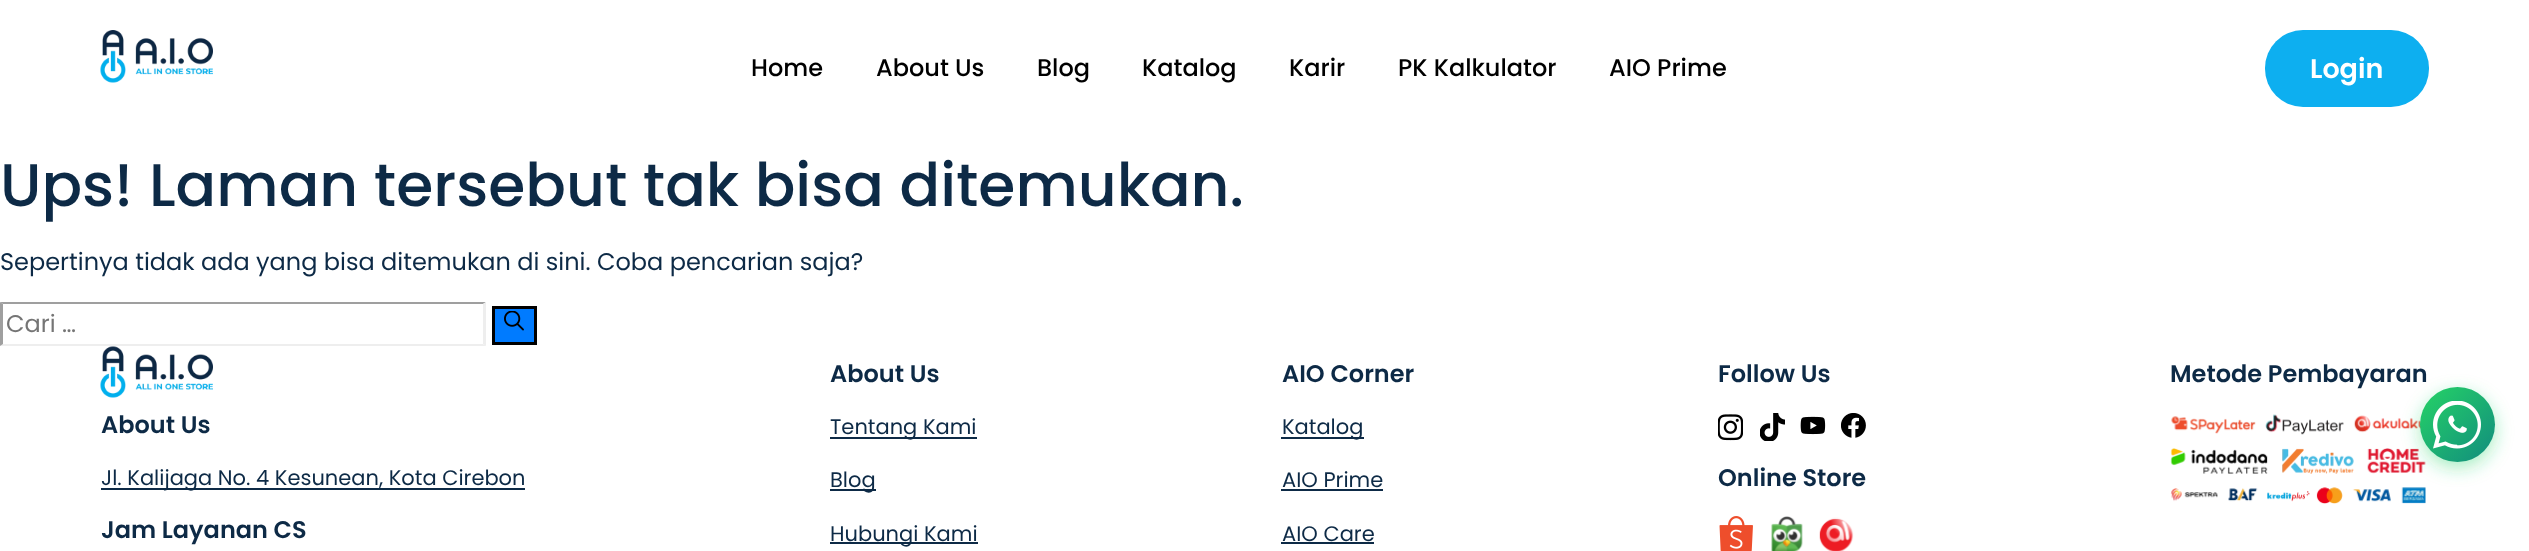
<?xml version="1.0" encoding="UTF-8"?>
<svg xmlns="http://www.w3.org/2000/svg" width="2529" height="551">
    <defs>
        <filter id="blur1" x="-50%" y="-200%" width="200%" height="500%"><feGaussianBlur stdDeviation="9"/></filter>
        <linearGradient id="g1" gradientUnits="userSpaceOnUse" x1="2420" y1="387" x2="2495" y2="462"><stop offset="0" stop-color="#25D366"/><stop offset="1" stop-color="#128C7E"/></linearGradient>
    </defs>
    <rect width="100%" height="100%" fill="#FFFFFF"/>
    <image x="100" y="30" width="113" height="53" href="img_01.png"/>
    <text x="751" y="76" font-family="Poppins" font-size="24" font-weight="500" fill="#000000">Home</text>
    <text x="876" y="76" font-family="Poppins" font-size="24" font-weight="500" fill="#000000">About Us</text>
    <text x="1037" y="76" font-family="Poppins" font-size="24" font-weight="500" fill="#000000">Blog</text>
    <text x="1142" y="76" font-family="Poppins" font-size="24" font-weight="500" fill="#000000">Katalog</text>
    <text x="1289" y="76" font-family="Poppins" font-size="24" font-weight="500" fill="#000000">Karir</text>
    <text x="1398" y="76" font-family="Poppins" font-size="24" font-weight="500" fill="#000000">PK Kalkulator</text>
    <text x="1609" y="76" font-family="Poppins" font-size="24" font-weight="500" fill="#000000">AIO Prime</text>
    <rect x="2265" y="30" width="164" height="77" rx="38" fill="#0DAFF0"/>
    <text x="2310" y="78" font-family="Poppins" font-size="27" font-weight="600" fill="#FFFFFF">Login</text>
    <text x="0" y="206" font-family="Poppins" font-size="60" font-weight="500" fill="#0D2A46">Ups! Laman tersebut tak bisa ditemukan.</text>
    <text x="0" y="270" font-family="Poppins" font-size="24" fill="#0D2A46">Sepertinya tidak ada yang bisa ditemukan di sini. Coba pencarian saja?</text>
    <path d="M 0 302 H 486 L 483 304 H 3 Z" fill="#9F9F9F"/>
    <path d="M 486 302 V 346 L 483 344 V 304 Z" fill="#EEEEEE"/>
    <path d="M 486 346 H 0 L 3 344 H 483 Z" fill="#EEEEEE"/>
    <path d="M 0 346 V 302 L 3 304 V 344 Z" fill="#9F9F9F"/>
    <text x="6" y="332" font-family="Poppins" font-size="24" fill="#757575">Cari …</text>
    <rect x="493.5" y="307.5" width="42" height="36" fill="#007BFF" stroke="#000000" stroke-width="3"/>
    <image x="504" y="311" width="20" height="20" href="img_02.png"/>
    <image x="100" y="346" width="113" height="52" href="img_03.png"/>
    <text x="101" y="433" font-family="Poppins" font-size="24" font-weight="600" fill="#0D2A46">About Us</text>
    <rect x="101" y="488" width="424" height="2" fill="#0D2A46"/>
    <text x="101" y="485" font-family="Poppins" font-size="21" fill="#0D2A46">Jl. Kalijaga No. 4 Kesunean, Kota Cirebon</text>
    <text x="101" y="538" font-family="Poppins" font-size="24" font-weight="600" fill="#0D2A46">Jam Layanan CS</text>
    <text x="830" y="382" font-family="Poppins" font-size="24" font-weight="600" fill="#0D2A46">About Us</text>
    <rect x="830" y="437" width="147" height="2" fill="#0D2A46"/>
    <text x="830" y="434" font-family="Poppins" font-size="21" fill="#0D2A46">Tentang Kami</text>
    <rect x="830" y="489" width="46" height="2" fill="#0D2A46"/>
    <text x="830" y="487" font-family="Poppins" font-size="21" fill="#0D2A46">Blog</text>
    <rect x="830" y="542" width="148" height="2" fill="#0D2A46"/>
    <text x="830" y="541" font-family="Poppins" font-size="21" fill="#0D2A46">Hubungi Kami</text>
    <text x="1282" y="382" font-family="Poppins" font-size="24" font-weight="600" fill="#0D2A46">AIO Corner</text>
    <rect x="1281" y="437" width="83" height="2" fill="#0D2A46"/>
    <text x="1282" y="434" font-family="Poppins" font-size="21" fill="#0D2A46">Katalog</text>
    <text x="1282" y="487" font-family="Poppins" font-size="21" fill="#0D2A46">AIO Prime</text>
    <rect x="1281" y="489" width="102" height="2" fill="#0D2A46"/>
    <text x="1282" y="541" font-family="Poppins" font-size="21" fill="#0D2A46">AIO Care</text>
    <rect x="1281" y="542" width="93" height="2" fill="#0D2A46"/>
    <text x="1718" y="382" font-family="Poppins" font-size="24" font-weight="600" fill="#0D2A46">Follow Us</text>
    <image x="1718" y="414" width="25" height="27" href="img_04.png"/>
    <image x="1760" y="413" width="25" height="28" href="img_05.png"/>
    <image x="1800" y="416" width="26" height="19" href="img_06.png"/>
    <image x="1841" y="413" width="25" height="25" href="img_07.png"/>
    <text x="1718" y="486" font-family="Poppins" font-size="24" font-weight="600" fill="#0D2A46">Online Store</text>
    <image x="1719" y="516" width="34" height="35" href="img_08.png"/>
    <image x="1771" y="516" width="32" height="35" href="img_09.png"/>
    <image x="1819" y="517" width="35" height="34" href="img_10.png"/>
    <text x="2170" y="382" font-family="Poppins" font-size="24" font-weight="600" fill="#0D2A46">Metode Pembayaran</text>
    <image x="2170" y="414" width="256" height="90" href="img_11.png"/>
    <rect x="2420" y="393" width="75" height="75" rx="37.5" fill="#25D366" fill-opacity="0.4" filter="url(#blur1)"/>
    <circle cx="2457.5" cy="424.5" r="37.5" fill="url(#g1)"/>
    <image x="2433" y="401" width="48" height="48" href="img_12.png"/>
</svg>
